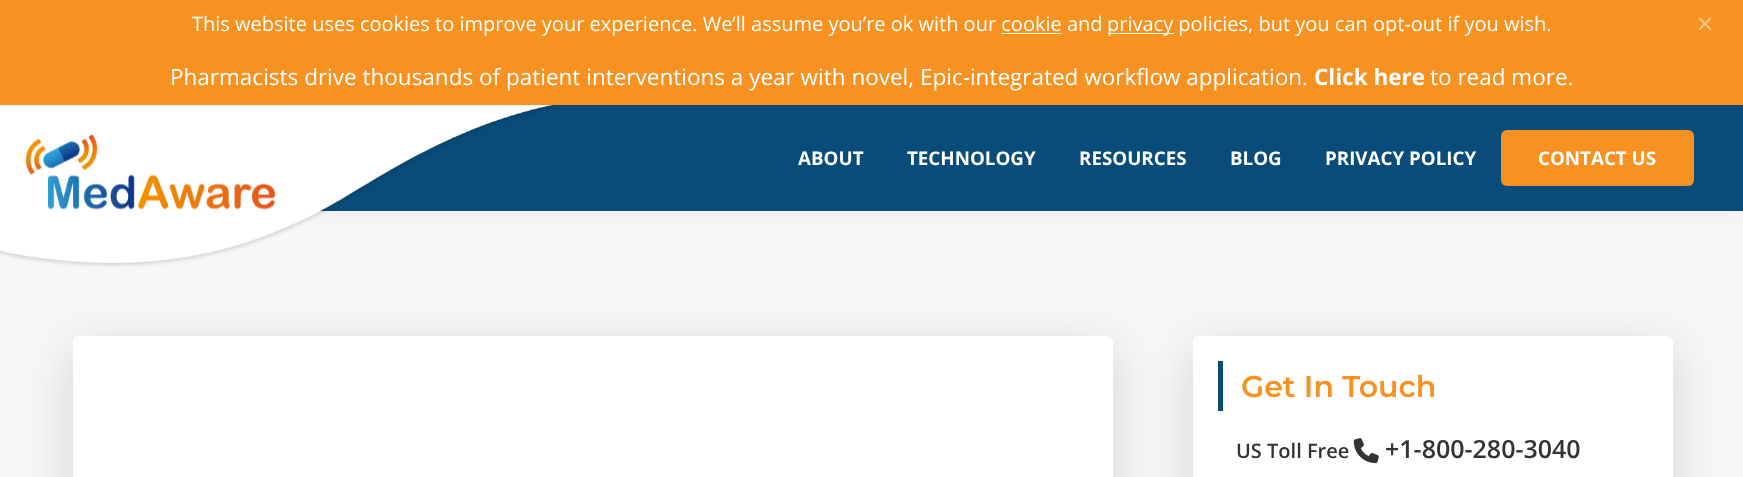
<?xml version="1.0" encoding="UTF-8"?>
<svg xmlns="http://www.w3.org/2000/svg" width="1743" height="477">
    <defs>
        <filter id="blur1" x="-50%" y="-200%" width="200%" height="500%"><feGaussianBlur stdDeviation="12.5"/></filter>
        <filter id="blur2" x="-50%" y="-200%" width="200%" height="500%"><feGaussianBlur stdDeviation="25"/></filter>
    </defs>
    <rect width="100%" height="100%" fill="#F7F7F7"/>
    <rect x="0" y="0" width="1743" height="49" fill="#F79220"/>
    <text x="192" y="31" font-family="Open Sans" font-size="20" fill="#FFFFFF">This website uses cookies to improve your experience. We’ll assume you’re ok with our cookie and</text>
    <rect x="1108" y="33" width="66" height="1" fill="#FFFFFF"/>
    <text x="1107" y="31" font-family="Open Sans" font-size="20" fill="#FFFFFF">privacy policies, but you can opt-out if you wish.</text>
    <rect x="1001" y="33" width="60" height="1" fill="#FFFFFF"/>
    <image x="1698" y="17" width="14" height="13" href="img_01.png"/>
    <rect x="0" y="105" width="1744" height="106" fill="#000000" fill-opacity="0.05" filter="url(#blur1)"/>
    <rect x="0" y="49" width="1743" height="56" fill="#F79222"/>
    <text x="170" y="85" font-family="Open Sans" font-size="22.5" fill="#FFFFFF">Pharmacists drive thousands of patient interventions a year with novel, Epic-integrated workflow application.</text>
    <text x="1314" y="85" font-family="Open Sans" font-size="22.5" font-weight="700" fill="#FFFFFF">Click here</text>
    <text x="1430" y="85" font-family="Open Sans" font-size="22.5" fill="#FFFFFF">to read more.</text>
    <rect x="319" y="105" width="1424" height="106" fill="#094C79"/>
    <image x="0" y="105" width="573" height="162" href="img_02.png"/>
    <image x="25" y="134" width="250" height="76" href="img_03.png"/>
    <text x="798" y="165" font-family="Open Sans" font-size="18.75" font-weight="700" fill="#FFFFFF">ABOUT</text>
    <text x="907" y="165" font-family="Open Sans" font-size="18.75" font-weight="700" fill="#FFFFFF">TECHNOLOGY</text>
    <text x="1079" y="165" font-family="Open Sans" font-size="18.75" font-weight="700" fill="#FFFFFF">RESOURCES</text>
    <text x="1230" y="165" font-family="Open Sans" font-size="18.75" font-weight="700" fill="#FFFFFF">BLOG</text>
    <text x="1325" y="165" font-family="Open Sans" font-size="18.75" font-weight="700" fill="#FFFFFF">PRIVACY POLICY</text>
    <rect x="1501" y="130" width="193" height="56" rx="6" fill="#F79222"/>
    <text x="1538" y="165" font-family="Open Sans" font-size="18.75" font-weight="700" fill="#FFFFFF">CONTACT US</text>
    <rect x="73" y="349" width="1040" height="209" rx="6" fill="#000000" fill-opacity="0.15" filter="url(#blur2)"/>
    <rect x="73" y="336" width="1040" height="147" rx="6" fill="#FFFFFF"/>
    <rect x="1193" y="349" width="480" height="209" rx="6" fill="#000000" fill-opacity="0.15" filter="url(#blur2)"/>
    <rect x="1193" y="336" width="480" height="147" rx="6" fill="#FFFFFF"/>
    <rect x="1218" y="361" width="5" height="50" fill="#094C79"/>
    <text x="1241" y="397" font-family="Montserrat" font-size="30" font-weight="600" fill="#F79220">Get In Touch</text>
    <text x="1236" y="458" font-family="Open Sans" font-size="20" font-weight="600" fill="#333333">US Toll Free</text>
    <image x="1353" y="438" width="26" height="26" href="img_04.png"/>
    <text x="1385" y="458" font-family="Open Sans" font-size="25" font-weight="600" fill="#333333">+1-800-280-3040</text>
</svg>
